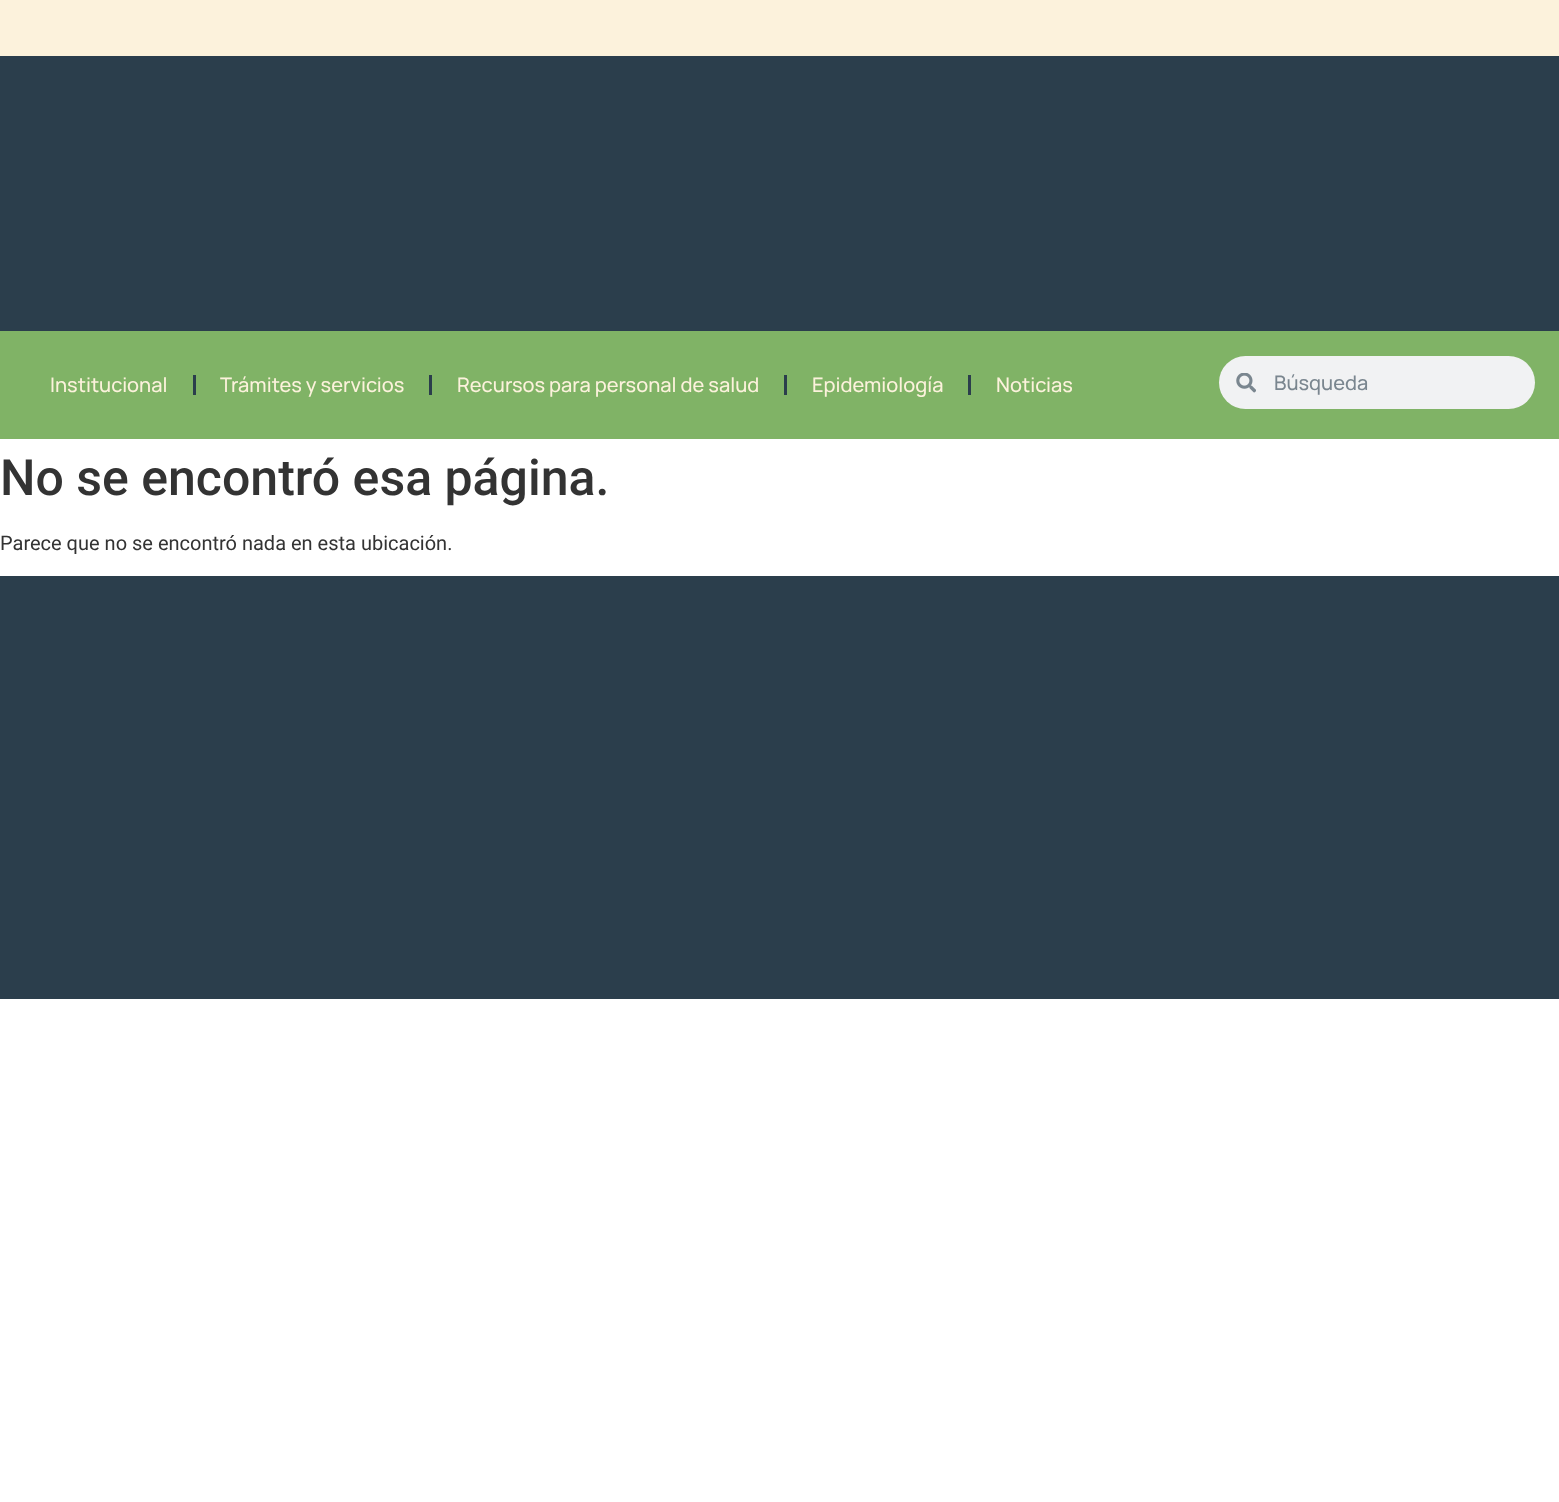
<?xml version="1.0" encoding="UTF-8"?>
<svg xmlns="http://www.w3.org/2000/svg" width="1559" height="1502">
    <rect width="100%" height="100%" fill="#FFFFFF"/>
    <rect x="0" y="0" width="1559" height="56" fill="#FCF2DC"/>
    <rect x="0" y="56" width="1559" height="275" fill="#2B3E4C"/>
    <rect x="0" y="331" width="1559" height="108" fill="#80B366"/>
    <text x="50" y="392" font-family="Manrope" font-size="20" font-weight="500" fill="#FCF2DC">Institucional</text>
    <rect x="193" y="375" width="3" height="20" fill="#2B3E4C"/>
    <text x="220" y="392" font-family="Manrope" font-size="20" font-weight="500" fill="#FCF2DC">Trámites y servicios</text>
    <rect x="429" y="375" width="3" height="20" fill="#2B3E4C"/>
    <text x="457" y="392" font-family="Manrope" font-size="20" font-weight="500" fill="#FCF2DC">Recursos para personal de salud</text>
    <rect x="784" y="375" width="3" height="20" fill="#2B3E4C"/>
    <text x="812" y="392" font-family="Manrope" font-size="20" font-weight="500" fill="#FCF2DC">Epidemiología</text>
    <rect x="968" y="375" width="3" height="20" fill="#2B3E4C"/>
    <text x="996" y="392" font-family="Manrope" font-size="20" font-weight="500" fill="#FCF2DC">Noticias</text>
    <rect x="1219" y="356" width="316" height="53" rx="26.5" fill="#F1F2F3"/>
    <image x="1236" y="373" width="20" height="20" href="img_01.png"/>
    <text x="1274" y="390" font-family="Manrope" font-size="20" font-weight="500" fill="#7A868F">Búsqueda</text>
    <text x="0" y="495" font-family="Roboto" font-size="50" font-weight="500" fill="#333333">No se encontró esa página.</text>
    <text x="0" y="550" font-family="Roboto" font-size="20" fill="#333333">Parece que no se encontró nada en esta ubicación.</text>
    <rect x="0" y="576" width="1559" height="423" fill="#2B3E4C"/>
</svg>
